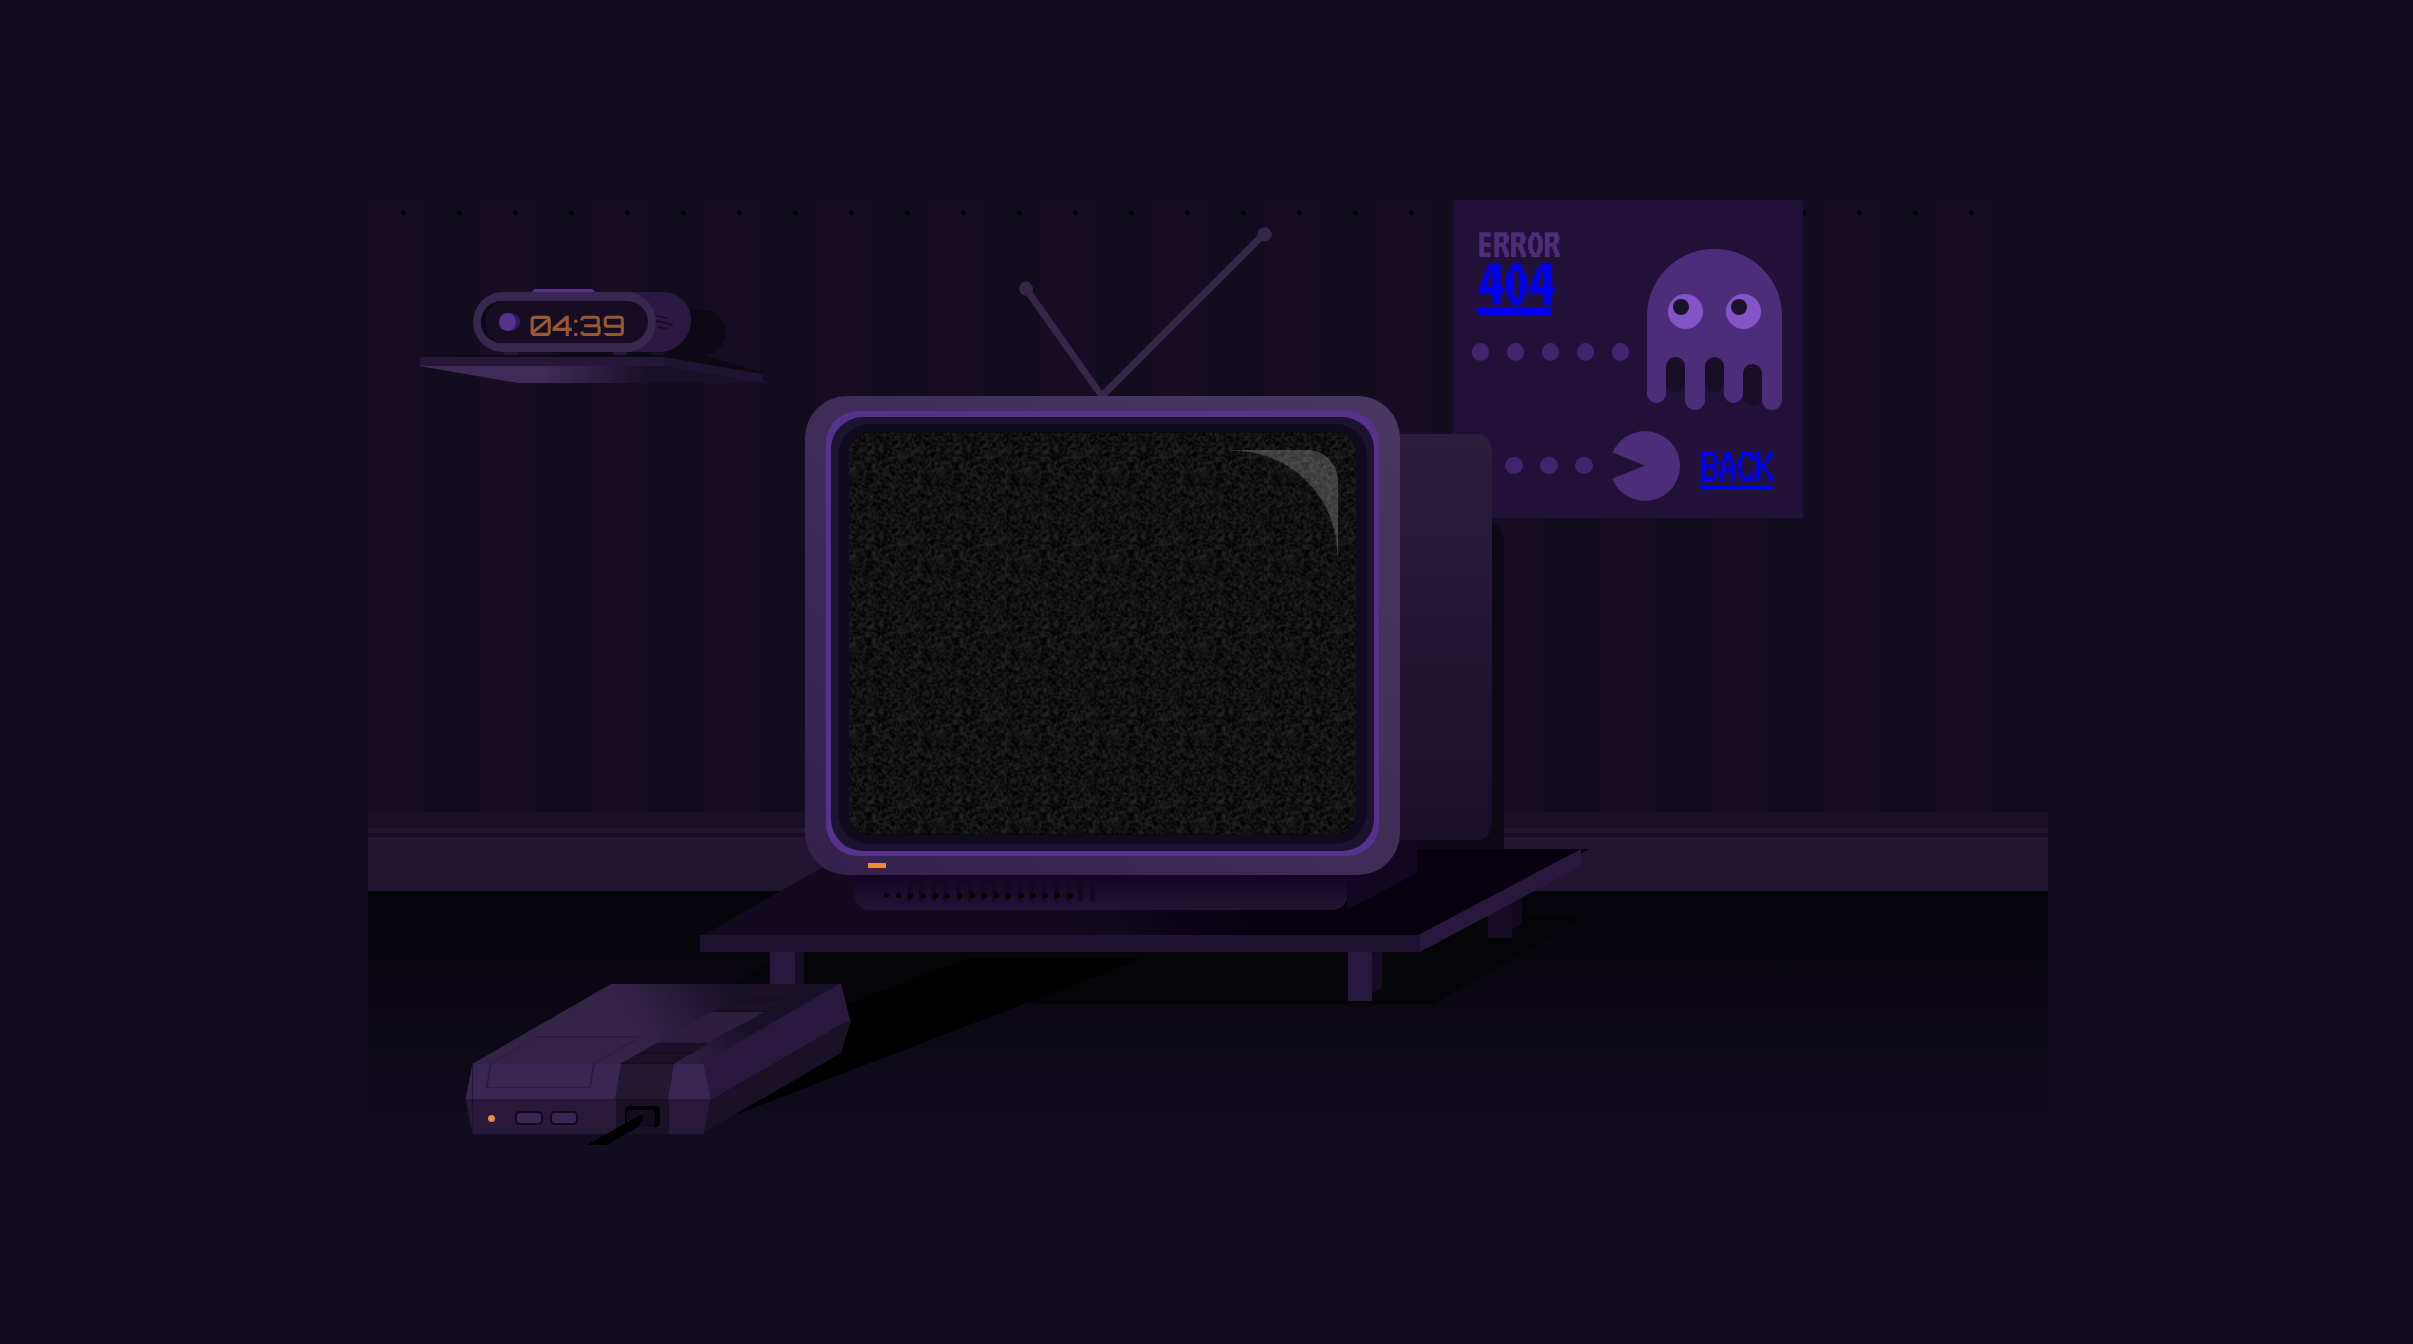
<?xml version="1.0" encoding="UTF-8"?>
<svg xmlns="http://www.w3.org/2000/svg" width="2413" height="1344">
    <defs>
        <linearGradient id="g1" gradientUnits="userSpaceOnUse" x1="1208" y1="891" x2="1208" y2="1145"><stop offset="0" stop-color="#06040B"/><stop offset="1" stop-color="#110C1E"/></linearGradient>
        <linearGradient id="g2" gradientUnits="userSpaceOnUse" x1="1067" y1="938" x2="1221" y2="849"><stop offset="0" stop-color="#130A21"/><stop offset="1" stop-color="#07000E"/></linearGradient>
        <linearGradient id="g3" gradientUnits="userSpaceOnUse" x1="1101" y1="910" x2="1101" y2="868"><stop offset="0" stop-color="#211333"/><stop offset="1" stop-color="#110222"/></linearGradient>
        <linearGradient id="g4" gradientUnits="userSpaceOnUse" x1="1432" y1="434" x2="1432" y2="840"><stop offset="0" stop-color="#2B1D3D"/><stop offset="1" stop-color="#1A0E29"/></linearGradient>
        <linearGradient id="g5" gradientUnits="userSpaceOnUse" x1="1337" y1="345" x2="868" y2="926"><stop offset="0" stop-color="#4A3863"/><stop offset="1" stop-color="#34214C"/></linearGradient>
        <linearGradient id="g6" gradientUnits="userSpaceOnUse" x1="547" y1="366" x2="646" y2="383"><stop offset="0" stop-color="#3E2B56"/><stop offset="1" stop-color="#180F28"/></linearGradient>
        <linearGradient id="g7" gradientUnits="userSpaceOnUse" x1="727" y1="984" x2="587" y2="1064"><stop offset="0" stop-color="#180F28"/><stop offset="0.6" stop-color="#342448"/></linearGradient>
        <clipPath id="clip1"><rect x="368" y="200" width="1680" height="945"/></clipPath>
    </defs>
    <rect width="100%" height="100%" fill="#110C1E"/>
    <rect x="1040" y="200" width="56" height="196" fill="#160D24"/>
    <path d="M 1021 288 L 1027 284 L 1107 398 L 1102 402 Z" fill="#36274A"/>
    <path d="M 1022 283 C 1029.5 277.5 1037.5 289 1030 294.5 C 1022.5 299.5 1014.5 288 1022 283 Z" fill="#36274A"/>
    <rect x="1152" y="200" width="56" height="196" fill="#160D24"/>
    <rect x="1264" y="200" width="56" height="196" fill="#160D24"/>
    <path d="M 1264 229 L 1269 234 L 1096 407 L 1091 402 Z" fill="#36274A"/>
    <path d="M 1269.5 229.5 C 1276 236 1266 245.5 1259.5 239 C 1253 232.5 1263 223 1269.5 229.5 Z" fill="#36274A"/>
    <rect x="1492" y="518" width="52" height="294" fill="#160D24"/>
    <circle cx="1803.5" cy="212.5" r="2.5" fill="#000000"/>
    <rect x="1453" y="200" width="350" height="318" fill="#211138"/>
    <rect x="368" y="891" width="1680" height="221" fill="url(#g1)"/>
    <rect x="368" y="828" width="1680" height="63" fill="#221532"/>
    <rect x="368" y="812" width="1680" height="12" fill="#191028"/>
    <rect x="368" y="824" width="1680" height="4" fill="#160D24"/>
    <rect x="368" y="833" width="1680" height="4" fill="#160D24"/>
    <path d="M 979 908 H 1469 C 1488 908 1504 894 1504 877 V 544 C 1504 527 1488 513 1469 513 H 979 C 960 513 944 527 944 544 V 877 C 944 894 960 908 979 908 Z" fill="#0C0915"/>
    <path d="M 854 915 H 1589 L 1434 1004 H 699 Z" fill="#050409"/>
    <path d="M 1508 931 L 1522 924 V 883 L 1508 891 Z" fill="#12091F"/>
    <rect x="1488" y="902" width="24" height="36" fill="#170C26"/>
    <path d="M 854 849 H 1589 L 1434 938 H 699 Z" fill="url(#g2)"/>
    <path d="M 854 868 H 1348 V 894 C 1348 903 1341 910 1332 910 H 870 C 861 910 854 903 854 894 Z" fill="url(#g3)"/>
    <path d="M 1347 872 L 1417 834 V 873 L 1347 910 Z" fill="#130622"/>
    <path d="M 1384 434 H 1479 C 1486 434 1492 442 1492 452 V 822 C 1492 832 1486 840 1479 840 H 1384 C 1377 840 1371 832 1371 822 V 452 C 1371 442 1377 434 1384 434 Z" fill="url(#g4)"/>
    <rect x="816" y="200" width="56" height="210" fill="#160D24"/>
    <rect x="1376" y="200" width="56" height="234" fill="#160D24"/>
    <rect x="805" y="396" width="595" height="479" rx="42" fill="url(#g5)"/>
    <rect x="826" y="411" width="553" height="445" rx="32" fill="#57328D"/>
    <rect x="831" y="417" width="543" height="434" rx="32" fill="#1C1330"/>
    <rect x="838" y="424" width="529" height="420" rx="32" fill="#110A20"/>
    <rect x="849" y="432" width="507" height="403" rx="21" fill="#000000"/>
    <image x="849" y="432" width="507" height="403" href="img_01.png"/>
    <image x="849" y="432" width="507" height="403" href="img_02.png"/>
    <rect x="868" y="863" width="18" height="5" fill="#EE8B3C"/>
    <rect x="907" y="882" width="5" height="19" rx="2.5" fill="#12081F"/>
    <circle cx="886.5" cy="895.5" r="2.5" fill="#000000"/>
    <rect x="919" y="882" width="5" height="19" rx="2.5" fill="#12081F"/>
    <circle cx="898.5" cy="895.5" r="2.5" fill="#000000"/>
    <rect x="931" y="882" width="5" height="19" rx="2.5" fill="#12081F"/>
    <circle cx="910.5" cy="895.5" r="2.5" fill="#000000"/>
    <rect x="943" y="882" width="5" height="19" rx="2.5" fill="#12081F"/>
    <circle cx="923.5" cy="895.5" r="2.5" fill="#000000"/>
    <rect x="956" y="882" width="5" height="19" rx="2.5" fill="#12081F"/>
    <circle cx="935.5" cy="895.5" r="2.5" fill="#000000"/>
    <rect x="968" y="882" width="5" height="19" rx="2.5" fill="#12081F"/>
    <circle cx="947.5" cy="895.5" r="2.5" fill="#000000"/>
    <rect x="980" y="882" width="5" height="19" rx="2.5" fill="#12081F"/>
    <circle cx="959.5" cy="895.5" r="2.5" fill="#000000"/>
    <rect x="992" y="882" width="5" height="19" rx="2.5" fill="#12081F"/>
    <circle cx="972.5" cy="895.5" r="2.5" fill="#000000"/>
    <rect x="1005" y="882" width="5" height="19" rx="2.5" fill="#12081F"/>
    <circle cx="984.5" cy="895.5" r="2.5" fill="#000000"/>
    <rect x="1017" y="882" width="5" height="19" rx="2.5" fill="#12081F"/>
    <circle cx="996.5" cy="895.5" r="2.5" fill="#000000"/>
    <rect x="1029" y="882" width="5" height="19" rx="2.5" fill="#12081F"/>
    <circle cx="1008.5" cy="895.5" r="2.5" fill="#000000"/>
    <rect x="1041" y="882" width="5" height="19" rx="2.5" fill="#12081F"/>
    <circle cx="1021.5" cy="895.5" r="2.5" fill="#000000"/>
    <rect x="1054" y="882" width="5" height="19" rx="2.5" fill="#12081F"/>
    <circle cx="1033.5" cy="895.5" r="2.5" fill="#000000"/>
    <rect x="1066" y="882" width="5" height="19" rx="2.5" fill="#12081F"/>
    <circle cx="1045.5" cy="895.5" r="2.5" fill="#000000"/>
    <rect x="1078" y="882" width="5" height="19" rx="2.5" fill="#12081F"/>
    <circle cx="1057.5" cy="895.5" r="2.5" fill="#000000"/>
    <rect x="1090" y="882" width="5" height="19" rx="2.5" fill="#12081F"/>
    <circle cx="1070.5" cy="895.5" r="2.5" fill="#000000"/>
    <path d="M 790 996 L 804 988 V 948 L 790 956 Z" fill="#170C26"/>
    <path d="M 1368 996 L 1382 988 V 948 L 1368 956 Z" fill="#170C26"/>
    <rect x="700" y="935" width="721" height="17" fill="#1F1131"/>
    <path d="M 1420 934 L 1581 849 V 866 L 1420 952 Z" fill="#28183D"/>
    <rect x="770" y="952" width="25" height="32" fill="#28183D"/>
    <rect x="1348" y="952" width="24" height="49" fill="#28183D"/>
    <rect x="368" y="200" width="56" height="612" fill="#160D24"/>
    <rect x="480" y="200" width="56" height="612" fill="#160D24"/>
    <circle cx="459.5" cy="212.5" r="2.5" fill="#000000"/>
    <rect x="592" y="200" width="56" height="612" fill="#160D24"/>
    <circle cx="571.5" cy="212.5" r="2.5" fill="#000000"/>
    <rect x="704" y="200" width="56" height="612" fill="#160D24"/>
    <circle cx="683.5" cy="212.5" r="2.5" fill="#000000"/>
    <circle cx="795.5" cy="212.5" r="2.5" fill="#000000"/>
    <rect x="928" y="200" width="56" height="196" fill="#160D24"/>
    <circle cx="907.5" cy="212.5" r="2.5" fill="#000000"/>
    <circle cx="1019.5" cy="212.5" r="2.5" fill="#000000"/>
    <circle cx="1131.5" cy="212.5" r="2.5" fill="#000000"/>
    <circle cx="1243.5" cy="212.5" r="2.5" fill="#000000"/>
    <circle cx="1355.5" cy="212.5" r="2.5" fill="#000000"/>
    <rect x="1824" y="200" width="56" height="612" fill="#160D24"/>
    <rect x="1936" y="200" width="56" height="612" fill="#160D24"/>
    <circle cx="1915.5" cy="212.5" r="2.5" fill="#000000"/>
    <circle cx="403.5" cy="212.5" r="2.5" fill="#000000"/>
    <circle cx="515.5" cy="212.5" r="2.5" fill="#000000"/>
    <circle cx="627.5" cy="212.5" r="2.5" fill="#000000"/>
    <circle cx="739.5" cy="212.5" r="2.5" fill="#000000"/>
    <circle cx="851.5" cy="212.5" r="2.5" fill="#000000"/>
    <circle cx="963.5" cy="212.5" r="2.5" fill="#000000"/>
    <circle cx="1075.5" cy="212.5" r="2.5" fill="#000000"/>
    <circle cx="1187.5" cy="212.5" r="2.5" fill="#000000"/>
    <circle cx="1299.5" cy="212.5" r="2.5" fill="#000000"/>
    <circle cx="1411.5" cy="212.5" r="2.5" fill="#000000"/>
    <circle cx="1859.5" cy="212.5" r="2.5" fill="#000000"/>
    <circle cx="1971.5" cy="212.5" r="2.5" fill="#000000"/>
    <rect x="1600" y="518" width="56" height="294" fill="#160D24"/>
    <rect x="1712" y="518" width="56" height="294" fill="#160D24"/>
    <path d="M 536 289 H 591 C 593 289 595 291 595 293 H 532 C 532 291 534 289 536 289 Z" fill="#57328D"/>
    <rect x="543" y="310" width="183" height="45" rx="22.5" fill="#0C0915"/>
    <path d="M 621 292 H 663 C 678.5 292 691 304.5 691 320 C 691 337.5 676.5 352 659 352 H 621 Z" fill="#2B1843"/>
    <rect x="473" y="292" width="183" height="60" rx="30" fill="#38274E"/>
    <rect x="481" y="301" width="167" height="42" rx="21" fill="#160D24"/>
    <path d="M 502 301 C 479 301 473 333 494 341 C 498 343 502 343 506 343 C 478 343 478 301 506 301 Z" fill="#0C0915"/>
    <path d="M 511 313 L 508.5 313.5 C 518.5 314.5 518.5 329.5 508.5 330.5 C 517.5 333 524 322 517.5 315.5 C 515.5 314 513.5 313 511 313 Z" fill="#341760"/>
    <rect x="499" y="313" width="17" height="18" rx="8.5" fill="#57328D"/>
    <text x="529" y="336" font-family="Orbitron" font-size="28" font-weight="500" fill="#985932">04:39</text>
    <path d="M 656 320 L 673 324 L 672.5 326 L 655.5 321.5 Z M 657 315 L 667.5 317.5 L 667 319 L 656.5 316.5 Z M 658 326 L 668 328.5 L 667.5 330 L 657.5 327.5 Z" fill="#160D24"/>
    <path d="M 504 352 H 518 C 518 356 515 359 511 359 C 507 359 504 356 504 352 Z" fill="#241736"/>
    <path d="M 536 352 H 550 C 550 356 547 359 543 359 C 539 359 536 356 536 352 Z" fill="#180E26"/>
    <path d="M 613 352 H 627 C 627 356 624 359 620 359 C 616 359 613 356 613 352 Z" fill="#241736"/>
    <path d="M 651 352 H 665 C 665 356 662 359 658 359 C 654 359 651 356 651 352 Z" fill="#180E26"/>
    <path d="M 447 355 H 703 L 764 373 H 508 Z" fill="#0C0915"/>
    <rect x="420" y="357" width="245" height="9" fill="#26173A"/>
    <path d="M 419 366 H 675 L 774 383 H 518 Z" fill="url(#g6)"/>
    <path d="M 664 357 L 762 374 V 383 L 664 366 Z" fill="#201233"/>
    <text x="1476" y="257" font-family="'VT323'" font-size="42" font-weight="700" fill="#4D2D79">ERROR</text>
    <text x="1476" y="305" font-family="'VT323'" font-size="70" font-weight="700" letter-spacing="-2.5" fill="#0000EE">404</text>
    <rect x="1477" y="308" width="75" height="7" fill="#0000EE"/>
    <path d="M 1714 249 H 1715 C 1752 249 1782 279 1782 316 V 378 H 1647 V 316 C 1647 279 1677 249 1714 249 Z" fill="#4D2D79"/>
    <rect x="1472" y="343" width="17" height="18" rx="8.5" fill="#43226F"/>
    <rect x="1507" y="343" width="17" height="18" rx="8.5" fill="#43226F"/>
    <rect x="1542" y="343" width="17" height="18" rx="8.5" fill="#43226F"/>
    <rect x="1577" y="343" width="17" height="18" rx="8.5" fill="#43226F"/>
    <rect x="1612" y="343" width="17" height="18" rx="8.5" fill="#43226F"/>
    <circle cx="1685.5" cy="311.5" r="17.5" fill="#8454C7"/>
    <circle cx="1681" cy="307" r="8" fill="#1C112B"/>
    <circle cx="1743.5" cy="311.5" r="17.5" fill="#8454C7"/>
    <circle cx="1739" cy="307" r="8" fill="#1C112B"/>
    <path d="M 1647 368 H 1666 V 393.5 C 1666 398.5 1661.5 403 1656.5 403 C 1651.5 403 1647 398.5 1647 393.5 Z" fill="#4D2D79"/>
    <rect x="1666" y="357" width="19" height="35" rx="9.5" fill="#190E28"/>
    <path d="M 1685 368 H 1705 V 400 C 1705 405.5 1700.5 410 1695 410 C 1689.5 410 1685 405.5 1685 400 Z" fill="#4D2D79"/>
    <rect x="1705" y="357" width="19" height="35" rx="9.5" fill="#190E28"/>
    <path d="M 1724 368 H 1743 V 393.5 C 1743 398.5 1738.5 403 1733.5 403 C 1728.5 403 1724 398.5 1724 393.5 Z" fill="#4D2D79"/>
    <rect x="1743" y="364" width="19" height="42" rx="9.5" fill="#190E28"/>
    <path d="M 1762 368 H 1782 V 400 C 1782 405.5 1777.5 410 1772 410 C 1766.5 410 1762 405.5 1762 400 Z" fill="#4D2D79"/>
    <circle cx="1645" cy="466" r="35" fill="#4D2D79"/>
    <rect x="1505" y="457" width="18" height="17" rx="8.5" fill="#43226F"/>
    <rect x="1540" y="457" width="18" height="17" rx="8.5" fill="#43226F"/>
    <rect x="1575" y="457" width="18" height="17" rx="8.5" fill="#43226F"/>
    <path d="M 1610 479.5 V 451.5 L 1645 465.5 Z" fill="#211138"/>
    <text x="1699" y="481" font-family="'VT323'" font-size="52" letter-spacing="-2.5" fill="#0000EE">BACK</text>
    <rect x="1699" y="485" width="74" height="5" fill="#0000EE"/>
    <path d="M 966 959 H 1141 L 685 1134 H 510 Z" fill="#000000"/>
    <path d="M 611 984 H 842 L 703 1064 H 472 Z" fill="url(#g7)"/>
    <path d="M 538 1036 H 643 L 640 1038 H 535 Z" fill="#2B1D3E"/>
    <path d="M 641 1036 H 643 L 594 1064 H 592 Z" fill="#2B1D3E"/>
    <path d="M 760 984 H 812 L 673 1064 H 620 Z" fill="#1B1127"/>
    <path d="M 751 989 H 803 L 800 990 H 748 Z" fill="#160E20"/>
    <path d="M 733 999 H 785 L 782 1001 H 729 Z" fill="#160E20"/>
    <path d="M 714 1010 H 767 L 764 1012 H 711 Z" fill="#160E20"/>
    <path d="M 711 1012 H 764 L 746 1022 H 693 Z" fill="#2D1E3F"/>
    <path d="M 696 1020 H 749 L 746 1022 H 693 Z" fill="#291D3A"/>
    <path d="M 693 1022 H 746 L 727 1032 H 675 Z" fill="#2D1E3F"/>
    <path d="M 678 1031 H 730 L 727 1032 H 675 Z" fill="#291D3A"/>
    <path d="M 675 1032 H 727 L 709 1043 H 657 Z" fill="#2D1E3F"/>
    <path d="M 660 1041 H 712 L 709 1043 H 657 Z" fill="#291D3A"/>
    <path d="M 701 1064 L 841 983 V 1025 L 701 1106 Z" fill="#28183D"/>
    <path d="M 841 1025 V 983 L 850 1020 Z" fill="#28183D"/>
    <path d="M 538 1036 H 539 L 491 1064 H 489 Z" fill="#2B1D3E"/>
    <path d="M 642 1052 H 694 L 691 1054 H 639 Z" fill="#160E20"/>
    <path d="M 623 1062 H 676 L 673 1064 H 620 Z" fill="#160E20"/>
    <path d="M 701 1106 L 841 1025 V 1053 L 701 1134 Z" fill="#1B1127"/>
    <rect x="473" y="1064" width="231" height="35" fill="#392652"/>
    <path d="M 472.5 1099 H 465.5 L 472.5 1064 Z" fill="#392652"/>
    <path d="M 593 1064 H 595 L 590.5 1088.5 H 589 Z" fill="#2B1D3E"/>
    <rect x="486" y="1087" width="105" height="1" fill="#2B1D3E"/>
    <path d="M 490 1064 H 491.5 L 487.5 1088.5 H 485.5 Z" fill="#2B1D3E"/>
    <path d="M 621 1064 H 674 L 668 1099 H 615 Z" fill="#231831"/>
    <path d="M 703.5 1099 V 1064 L 710.5 1099 Z" fill="#392652"/>
    <rect x="473" y="1099" width="231" height="35" fill="#28193B"/>
    <path d="M 472.5 1099 V 1134 L 465.5 1099 Z" fill="#28193B"/>
    <circle cx="491.5" cy="1118.5" r="3.5" fill="#EE8B3C"/>
    <rect x="516" y="1112" width="26" height="12" rx="4" fill="#392652" stroke="#0E0A19" stroke-width="2"/>
    <rect x="551" y="1112" width="26" height="12" rx="4" fill="#392652" stroke="#0E0A19" stroke-width="2"/>
    <rect x="616" y="1099" width="53" height="35" fill="#1B1127"/>
    <rect x="625" y="1106" width="35" height="21" rx="4" fill="#020204"/>
    <rect x="627" y="1110" width="28" height="17" rx="4" fill="#140C1D"/>
    <g clip-path="url(#clip1)">
        <path d="M 578 1150 L 640 1115 C 647 1114 641 1124 638 1127 L 578 1161 C 571 1165 573 1154 578 1150 Z" fill="#000000"/>
    </g>
    <path d="M 703.5 1099 H 710.5 L 703.5 1134 Z" fill="#28193B"/>
    <path d="M 841 1025 L 851.5 1019 L 841 1053 Z" fill="#1B1127"/>
</svg>
